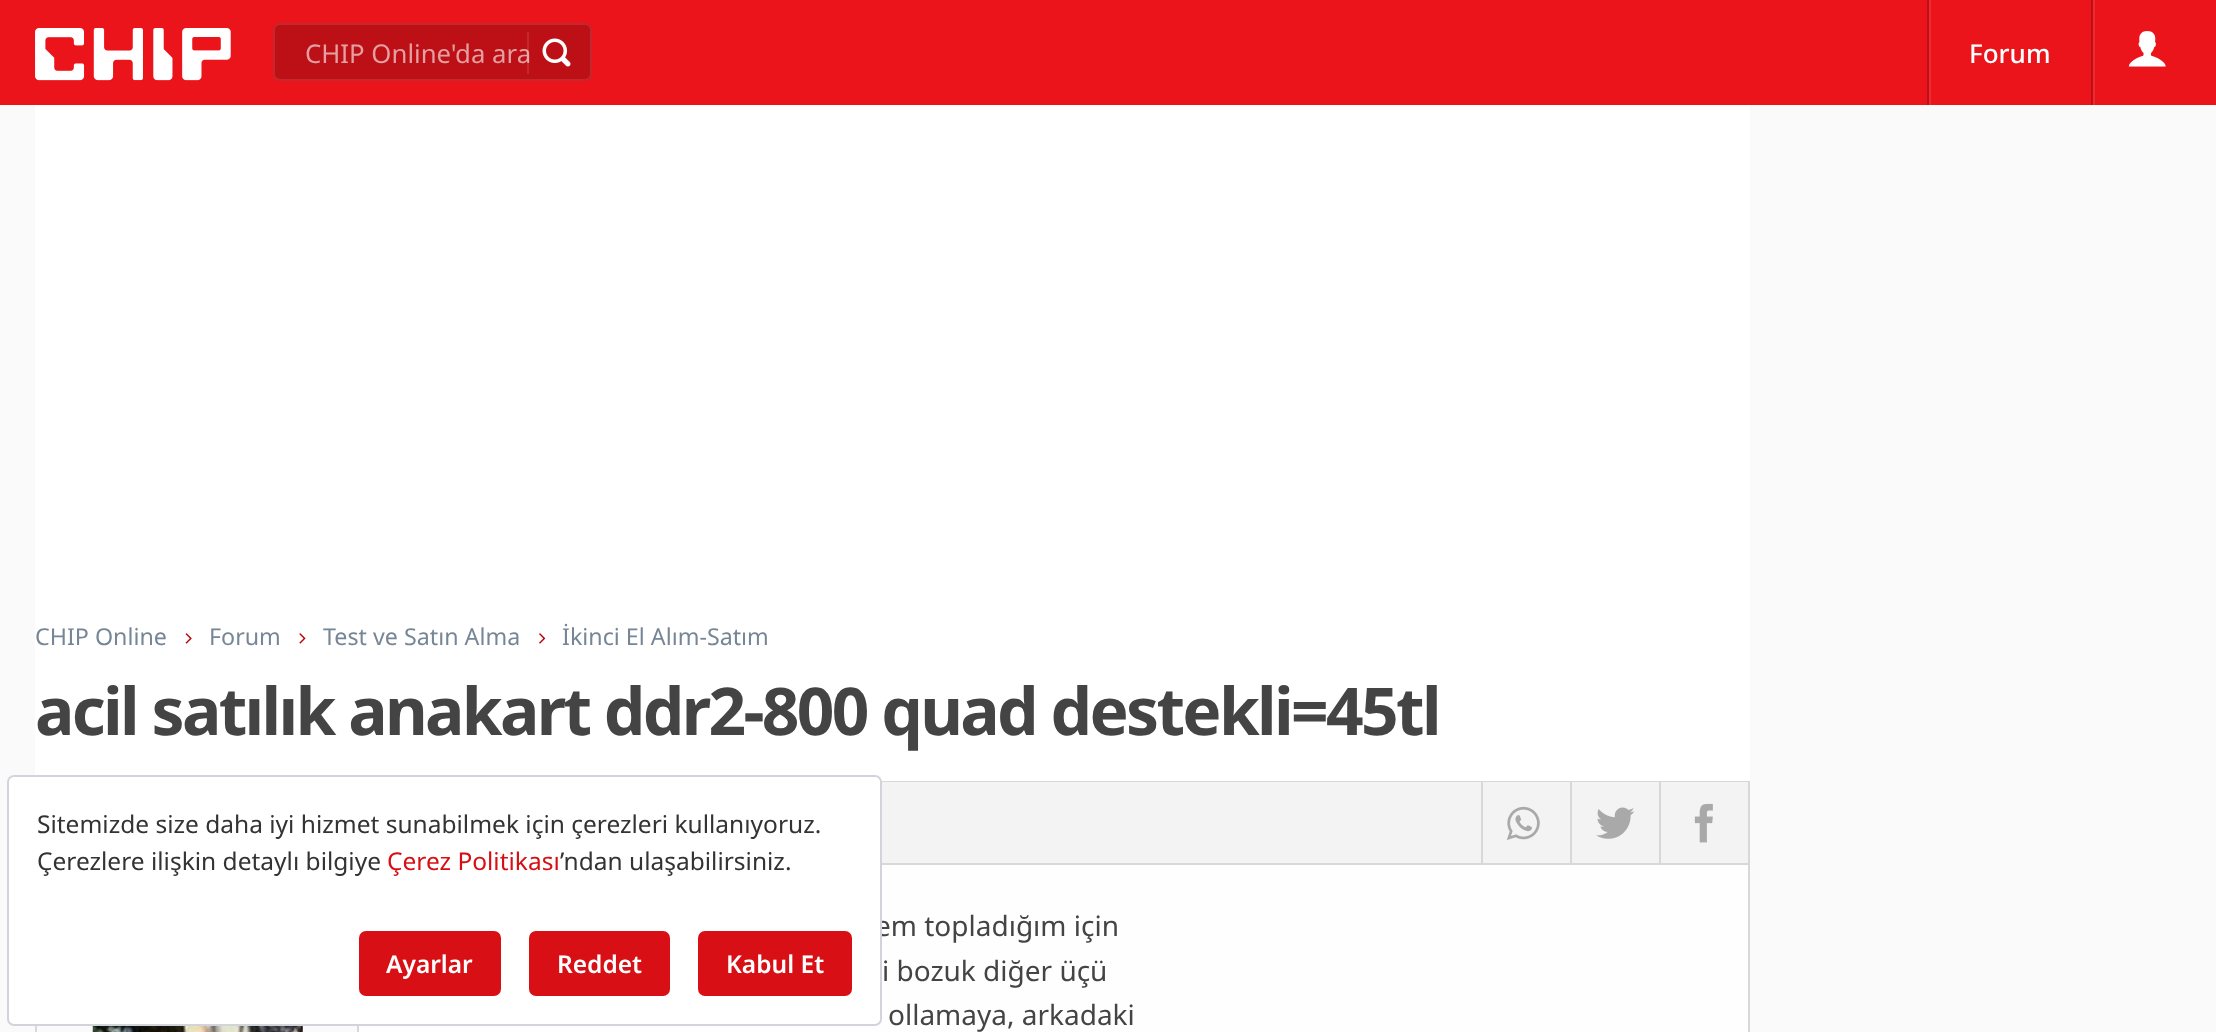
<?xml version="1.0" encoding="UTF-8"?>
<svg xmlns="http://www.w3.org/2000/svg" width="2216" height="1032">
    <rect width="100%" height="100%" fill="#FAFAFA"/>
    <rect x="0" y="0" width="2216" height="105" fill="#EB141B"/>
    <image x="35" y="28" width="196" height="53" href="img_01.png"/>
    <rect x="273" y="23" width="319" height="58" rx="7" fill="#BC1016"/>
    <rect x="274" y="24" width="317" height="56" rx="6" fill="none" stroke="#FFFFFF" stroke-opacity="0.1" stroke-width="2"/>
    <text x="305" y="63" font-family="Noto Sans" font-size="25.75" fill="#E49FA2">CHIP Online'da ara</text>
    <rect x="527" y="32" width="2" height="42" fill="#FFFFFF" fill-opacity="0.1"/>
    <image x="542" y="38" width="29" height="29" href="img_02.png"/>
    <rect x="1929" y="0" width="2" height="105" fill="#ED2C32"/>
    <rect x="1927" y="0" width="2" height="105" fill="#BC1016"/>
    <text x="1969" y="63" font-family="Noto Sans" font-size="26" font-weight="500" fill="#FFFFFF">Forum</text>
    <rect x="2093" y="0" width="2" height="105" fill="#ED2C32"/>
    <rect x="2091" y="0" width="2" height="105" fill="#BC1016"/>
    <image x="2128" y="31" width="38" height="36" href="img_03.png"/>
    <rect x="35" y="105" width="1715" height="676" fill="#FFFFFF"/>
    <text x="35" y="645" font-family="Noto Sans" font-size="23.25" fill="#768696">CHIP Online</text>
    <image x="185" y="633" width="7" height="11" href="img_04.png"/>
    <text x="209" y="645" font-family="Noto Sans" font-size="23.25" fill="#768696">Forum</text>
    <image x="299" y="633" width="7" height="11" href="img_05.png"/>
    <text x="323" y="645" font-family="Noto Sans" font-size="23.25" fill="#768696">Test ve Satın Alma</text>
    <image x="539" y="633" width="7" height="11" href="img_06.png"/>
    <text x="562" y="645" font-family="Noto Sans" font-size="23.25" fill="#768696">İkinci El Alım-Satım</text>
    <text x="35" y="735" font-family="Noto Sans" font-size="65.8" font-weight="700" letter-spacing="-2.65" fill="#444444">acil satılık anakart ddr2-800 quad destekli=45tl</text>
    <rect x="881" y="781" width="869" height="1" fill="#D8D8D8"/>
    <rect x="882" y="863" width="868" height="2" fill="#D8D8D8"/>
    <rect x="882" y="782" width="866" height="81" fill="#F3F3F3"/>
    <rect x="1748" y="782" width="2" height="81" fill="#D8D8D8"/>
    <rect x="1481" y="782" width="2" height="81" fill="#D8D8D8"/>
    <image x="1506" y="806" width="34" height="34" href="img_07.png"/>
    <rect x="1570" y="782" width="2" height="81" fill="#D8D8D8"/>
    <image x="1596" y="807" width="39" height="32" href="img_08.png"/>
    <rect x="1659" y="782" width="2" height="81" fill="#D8D8D8"/>
    <image x="1694" y="803" width="19" height="40" href="img_09.png"/>
    <rect x="359" y="865" width="1389" height="167" fill="#FEFEFE"/>
    <rect x="35" y="1026" width="2" height="6" fill="#D8D8D8"/>
    <image x="92" y="1026" width="211" height="6" href="img_10.png"/>
    <rect x="1748" y="865" width="2" height="167" fill="#D8D8D8"/>
    <rect x="357" y="1026" width="2" height="6" fill="#D8D8D8"/>
    <text x="875" y="936" font-family="Noto Sans" font-size="28" fill="#444444">em topladığım için</text>
    <text x="882" y="981" font-family="Noto Sans" font-size="28" fill="#444444">i bozuk diğer üçü</text>
    <text x="888" y="1025" font-family="Noto Sans" font-size="28" fill="#444444">ollamaya, arkadaki</text>
    <rect x="8" y="776" width="873" height="249" rx="6" fill="#FFFFFF" stroke="#D1D5DB" stroke-width="2"/>
    <text font-family="Noto Sans" font-size="24.5" fill="#333333">
        <tspan x="37" y="833">Sitemizde size daha iyi hizmet sunabilmek için çerezleri kullanıyoruz.</tspan>
        <tspan x="37" y="870">Çerezlere ilişkin detaylı bilgiye</tspan>
    </text>
    <text x="387" y="870" font-family="Noto Sans" font-size="24.5" fill="#D70F12">Çerez Politikası</text>
    <text x="560" y="870" font-family="Noto Sans" font-size="24.5" fill="#333333">’ndan ulaşabilirsiniz.</text>
    <rect x="359" y="931" width="142" height="65" rx="7" fill="#D80F14"/>
    <text x="386" y="973" font-family="Noto Sans" font-size="24.5" font-weight="600" fill="#FFFFFF">Ayarlar</text>
    <rect x="529" y="931" width="141" height="65" rx="7" fill="#D80F14"/>
    <text x="557" y="973" font-family="Noto Sans" font-size="24.5" font-weight="600" fill="#FFFFFF">Reddet</text>
    <rect x="698" y="931" width="154" height="65" rx="7" fill="#D80F14"/>
    <text x="726" y="973" font-family="Noto Sans" font-size="24.5" font-weight="600" fill="#FFFFFF">Kabul Et</text>
</svg>
